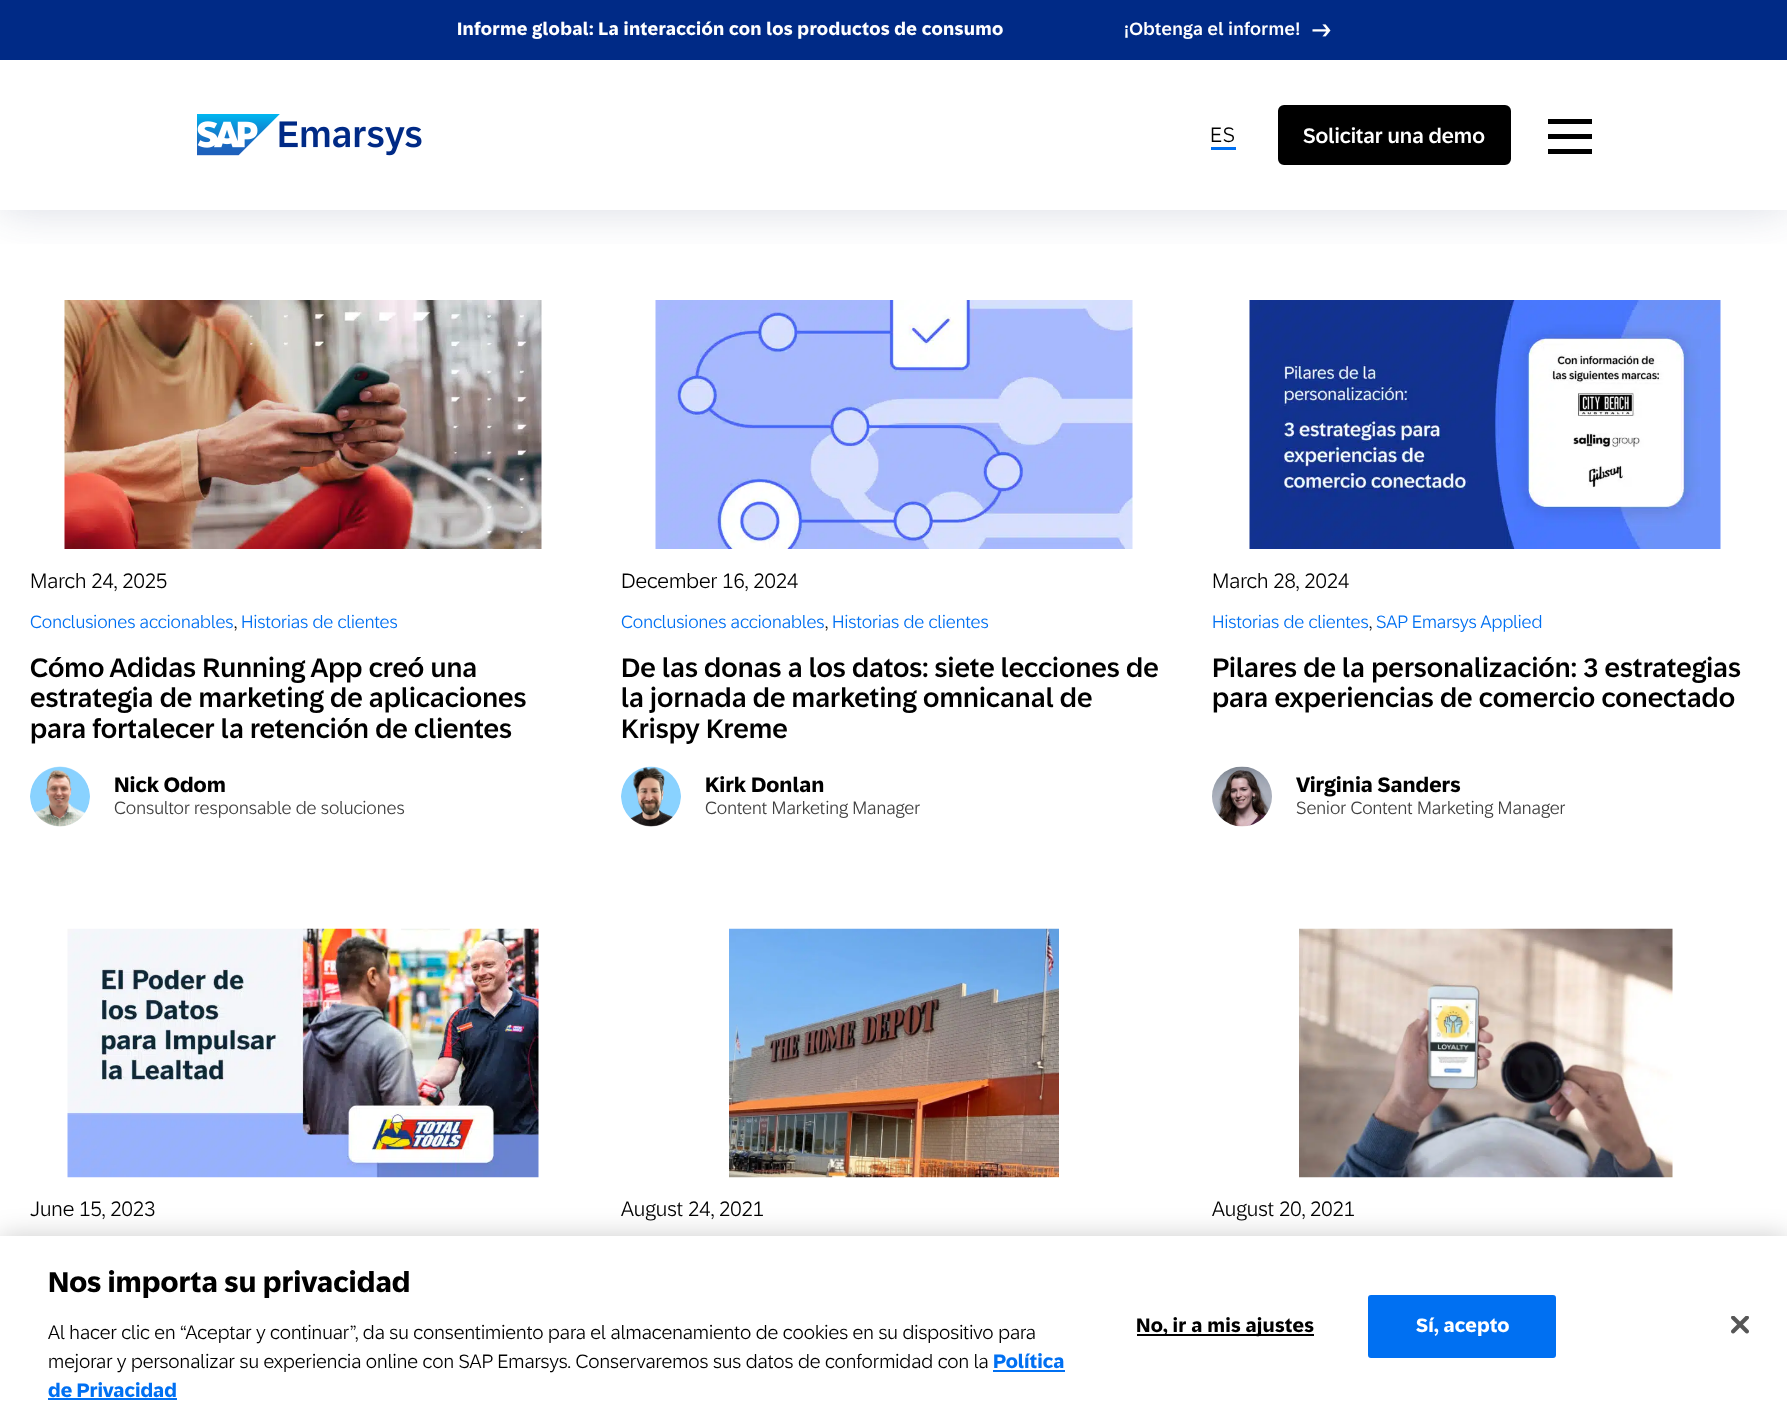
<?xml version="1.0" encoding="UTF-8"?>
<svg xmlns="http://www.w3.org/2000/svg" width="1787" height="1420">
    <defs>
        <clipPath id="clip1"><rect x="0" y="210" width="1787" height="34"/></clipPath>
        <filter id="blur1" x="-50%" y="-200%" width="200%" height="500%"><feGaussianBlur stdDeviation="22.5"/></filter>
        <filter id="blur2" x="-50%" y="-200%" width="200%" height="500%"><feGaussianBlur stdDeviation="13.5"/></filter>
    </defs>
    <rect width="100%" height="100%" fill="#FFFFFF"/>
    <g clip-path="url(#clip1)">
        <rect x="0" y="0" width="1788" height="210" fill="#7F89A1" fill-opacity="0.3" filter="url(#blur1)"/>
    </g>
    <rect x="0" y="0" width="1787" height="60" fill="#002A86"/>
    <text x="457" y="35" font-family="'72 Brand'" font-size="18" font-weight="700" letter-spacing="0.35" fill="#FFFFFF">Informe global: La interacción con los productos de consumo</text>
    <text x="1124" y="35" font-family="'72 Brand'" font-size="18" font-weight="500" letter-spacing="0.35" fill="#FFFFFF">¡Obtenga el informe!</text>
    <image x="1312" y="24" width="19" height="13" href="img_01.png"/>
    <image x="197" y="114" width="225" height="42" href="img_02.png"/>
    <text x="1210" y="142" font-family="'72 Brand'" font-size="21" letter-spacing="1" fill="#000000">ES</text>
    <rect x="1211" y="147" width="25" height="3" fill="#0070F2"/>
    <rect x="1279.5" y="106.5" width="230" height="57" rx="4.5" fill="#000000" stroke="#000000" stroke-width="3"/>
    <text x="1303" y="143" font-family="'72 Brand'" font-size="21" font-weight="500" fill="#FFFFFF">Solicitar una demo</text>
    <rect x="1548" y="134" width="44" height="5" fill="#000000"/>
    <rect x="1548" y="119" width="44" height="5" fill="#000000"/>
    <rect x="1548" y="149" width="44" height="5" fill="#000000"/>
    <image x="64" y="300" width="478" height="249" href="img_03.png"/>
    <text x="30" y="588" font-family="'72 Brand'" font-size="21" fill="#000000">March 24, 2025</text>
    <text x="30" y="628" font-family="'72 Brand'" font-size="18" fill="#0070F2">Conclusiones accionables</text>
    <text x="234" y="628" font-family="'72 Brand'" font-size="18" fill="#000000">,</text>
    <text x="241" y="628" font-family="'72 Brand'" font-size="18" fill="#0070F2">Historias de clientes</text>
    <text font-family="'72 Brand'" font-size="27" font-weight="500" letter-spacing="0.05" fill="#000000">
        <tspan x="30" y="677">Cómo Adidas Running App creó una</tspan>
        <tspan x="30" y="707">estrategia de marketing de aplicaciones</tspan>
        <tspan x="30" y="738">para fortalecer la retención de clientes</tspan>
    </text>
    <image x="30" y="766" width="60" height="61" href="img_04.png"/>
    <text x="114" y="792" font-family="'72 Brand'" font-size="21" font-weight="700" fill="#000000">Nick Odom</text>
    <text x="114" y="814" font-family="'72 Brand'" font-size="18" fill="#404040">Consultor responsable de soluciones</text>
    <image x="655" y="300" width="478" height="249" href="img_05.png"/>
    <text x="621" y="588" font-family="'72 Brand'" font-size="21" fill="#000000">December 16, 2024</text>
    <text x="621" y="628" font-family="'72 Brand'" font-size="18" fill="#0070F2">Conclusiones accionables</text>
    <text x="825" y="628" font-family="'72 Brand'" font-size="18" fill="#000000">,</text>
    <text x="832" y="628" font-family="'72 Brand'" font-size="18" fill="#0070F2">Historias de clientes</text>
    <text font-family="'72 Brand'" font-size="27" font-weight="500" letter-spacing="0.05" fill="#000000">
        <tspan x="621" y="677">De las donas a los datos: siete lecciones de</tspan>
        <tspan x="621" y="707">la jornada de marketing omnicanal de</tspan>
        <tspan x="621" y="738">Krispy Kreme</tspan>
    </text>
    <image x="621" y="766" width="60" height="61" href="img_06.png"/>
    <text x="705" y="792" font-family="'72 Brand'" font-size="21" font-weight="700" fill="#000000">Kirk Donlan</text>
    <text x="705" y="814" font-family="'72 Brand'" font-size="18" fill="#404040">Content Marketing Manager</text>
    <image x="1249" y="300" width="472" height="249" href="img_07.png"/>
    <text x="1212" y="588" font-family="'72 Brand'" font-size="21" fill="#000000">March 28, 2024</text>
    <text x="1212" y="628" font-family="'72 Brand'" font-size="18" fill="#0070F2">Historias de clientes</text>
    <text x="1369" y="628" font-family="'72 Brand'" font-size="18" fill="#000000">,</text>
    <text x="1376" y="628" font-family="'72 Brand'" font-size="18" fill="#0070F2">SAP Emarsys Applied</text>
    <text font-family="'72 Brand'" font-size="27" font-weight="500" letter-spacing="0.05" fill="#000000">
        <tspan x="1212" y="677">Pilares de la personalización: 3 estrategias</tspan>
        <tspan x="1212" y="707">para experiencias de comercio conectado</tspan>
    </text>
    <image x="1212" y="766" width="60" height="61" href="img_08.png"/>
    <text x="1296" y="792" font-family="'72 Brand'" font-size="21" font-weight="700" fill="#000000">Virginia Sanders</text>
    <text x="1296" y="814" font-family="'72 Brand'" font-size="18" fill="#404040">Senior Content Marketing Manager</text>
    <image x="67" y="928" width="472" height="250" href="img_09.png"/>
    <text x="30" y="1216" font-family="'72 Brand'" font-size="21" fill="#000000">June 15, 2023</text>
    <image x="729" y="928" width="330" height="250" href="img_10.png"/>
    <text x="621" y="1216" font-family="'72 Brand'" font-size="21" fill="#000000">August 24, 2021</text>
    <image x="1299" y="928" width="374" height="250" href="img_11.png"/>
    <text x="1212" y="1216" font-family="'72 Brand'" font-size="21" fill="#000000">August 20, 2021</text>
    <rect x="0" y="1236" width="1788" height="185" fill="#000000" fill-opacity="0.2" filter="url(#blur2)"/>
    <rect x="0" y="1236" width="1787" height="184" fill="#FFFFFF"/>
    <text x="48" y="1292" font-family="'72 Brand'" font-size="28.75" font-weight="700" fill="#000000">Nos importa su privacidad</text>
    <text font-family="'72 Brand'" font-size="19.5" fill="#000000">
        <tspan x="48" y="1339">Al hacer clic en “Aceptar y continuar”, da su consentimiento para el almacenamiento de cookies en su dispositivo para</tspan>
        <tspan x="48" y="1368">mejorar y personalizar su experiencia online con SAP Emarsys. Conservaremos sus datos de conformidad con la</tspan>
    </text>
    <text x="993" y="1368" font-family="'72 Brand'" font-size="19.5" font-weight="700" fill="#0070F2">Política</text>
    <rect x="993" y="1370" width="72" height="2" fill="#0070F2"/>
    <text x="48" y="1397" font-family="'72 Brand'" font-size="19.5" font-weight="700" fill="#0070F2">de Privacidad</text>
    <rect x="48" y="1398" width="129" height="2" fill="#0070F2"/>
    <rect x="1137" y="1334" width="177" height="2" fill="#000000"/>
    <text x="1136" y="1332" font-family="'72 Brand'" font-size="19.5" font-weight="700" letter-spacing="0.25" fill="#000000">No, ir a mis ajustes</text>
    <rect x="1369" y="1296" width="186" height="61" rx="2" fill="#0070F2" stroke="#0070F2" stroke-width="2"/>
    <text x="1416" y="1332" font-family="'72 Brand'" font-size="19.5" font-weight="700" letter-spacing="0.25" fill="#FFFFFF">Sí, acepto</text>
    <image x="1731" y="1316" width="18" height="18" href="img_12.png"/>
</svg>
